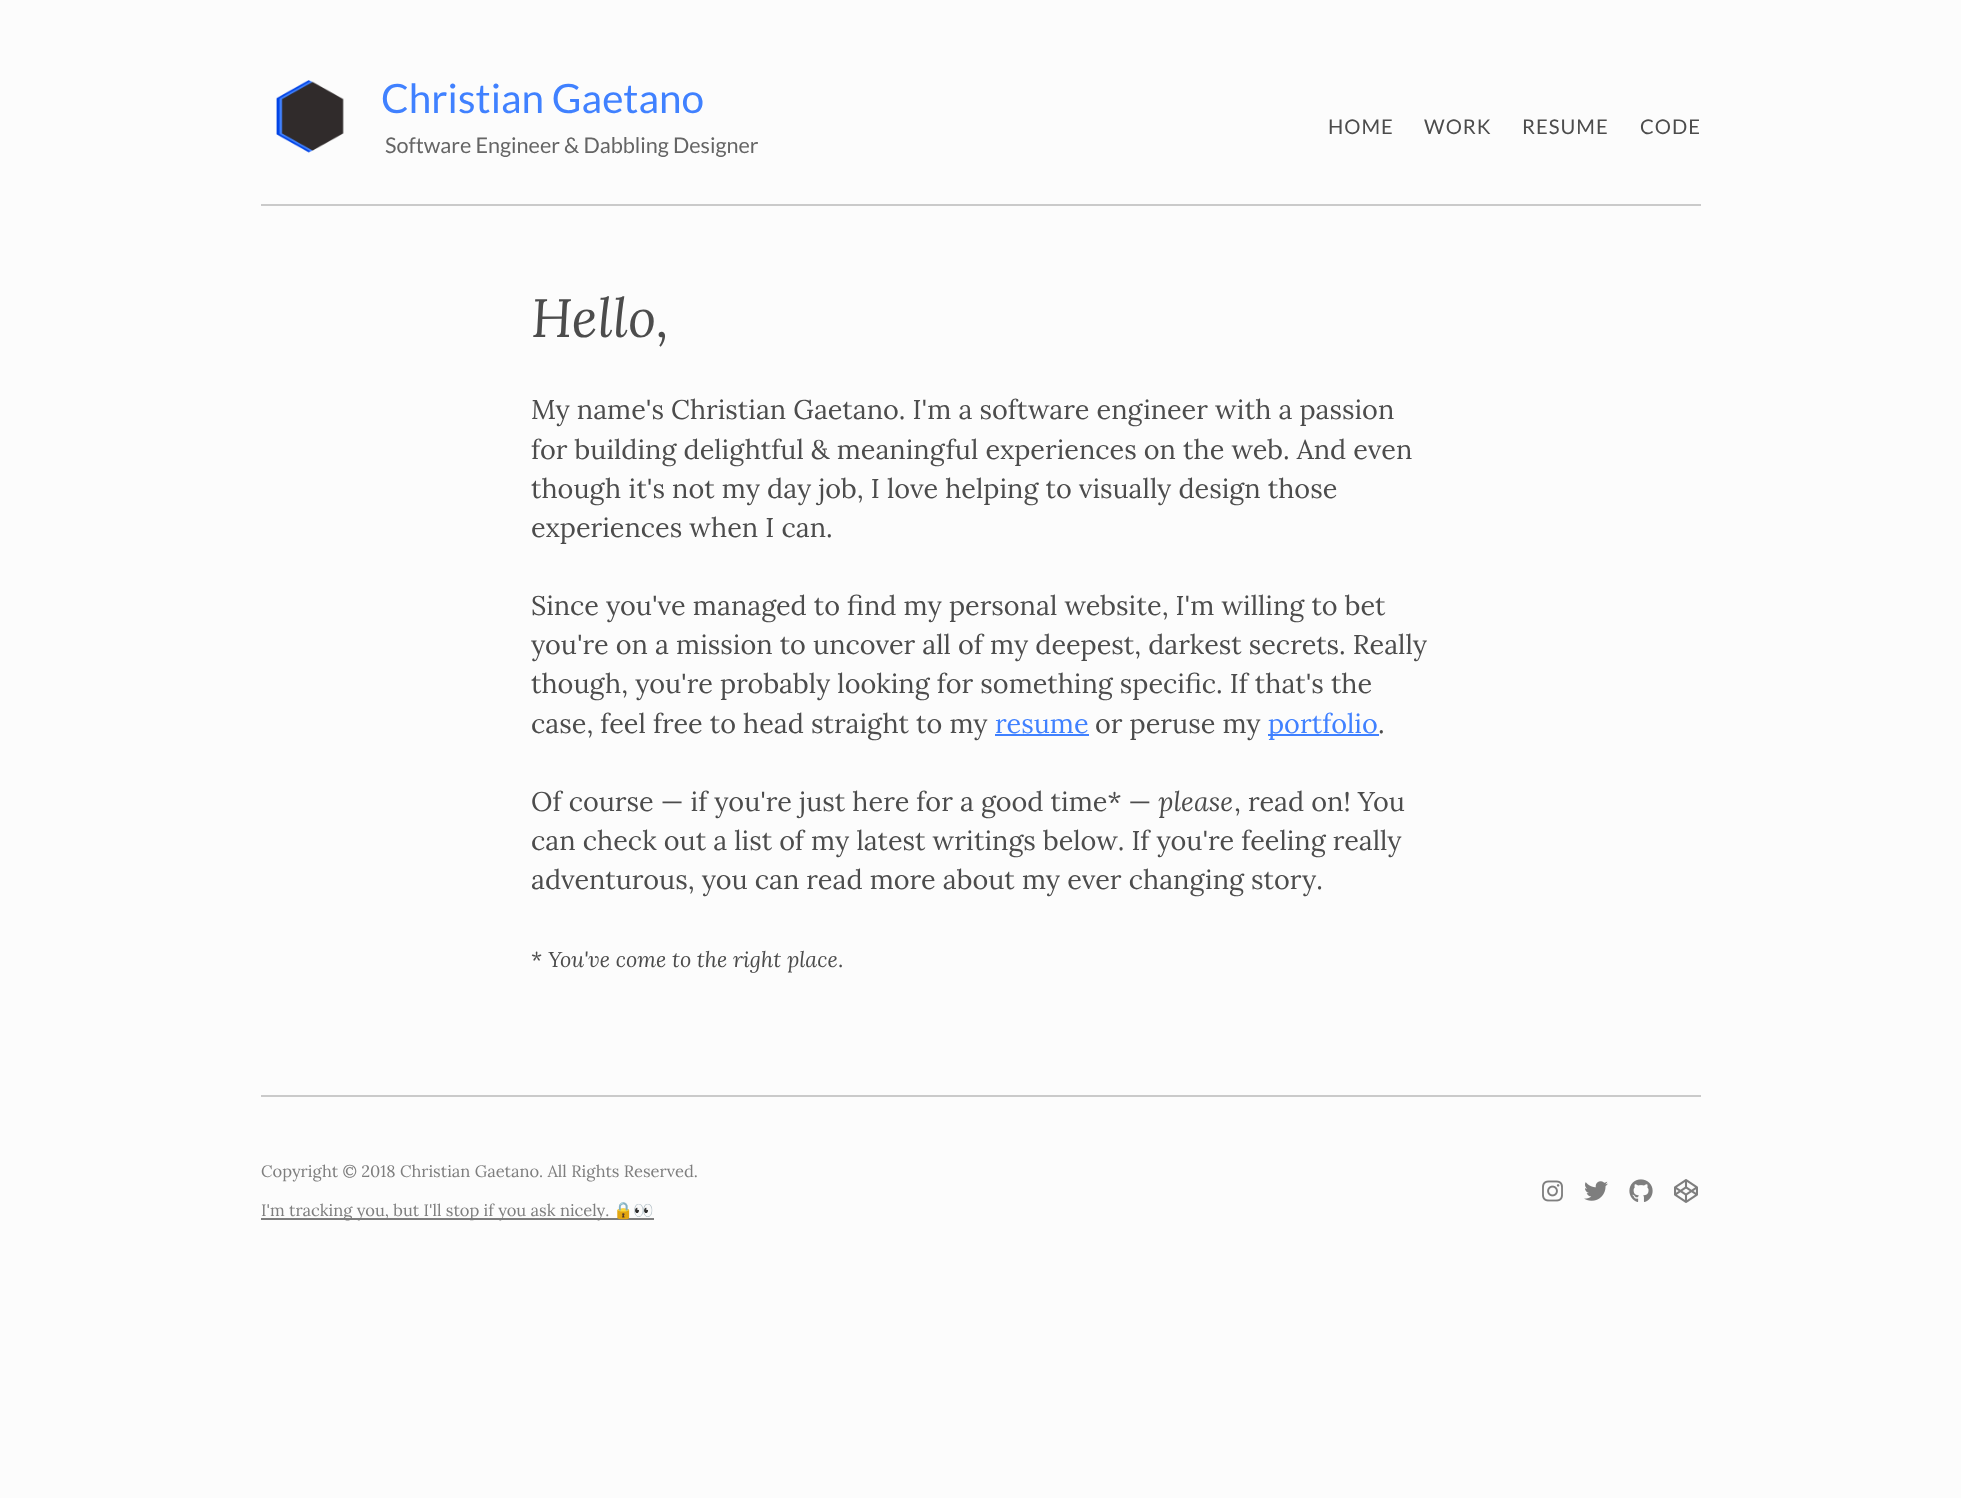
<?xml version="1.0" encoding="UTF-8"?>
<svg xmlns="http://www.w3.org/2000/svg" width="1961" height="1498">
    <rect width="100%" height="100%" fill="#FCFCFC"/>
    <rect x="261" y="204" width="1440" height="2" fill="#CACACA"/>
    <image x="276" y="80" width="68" height="73" href="img_01.png"/>
    <text x="381" y="113" font-family="Lato" font-size="40.5" fill="#4081FF">Christian Gaetano</text>
    <text x="385" y="153" font-family="Lato" font-size="21.6" fill="#656565">Software Engineer &amp; Dabbling Designer</text>
    <text x="1328" y="134" font-family="Lato" font-size="20.25" letter-spacing="1" fill="#4C4C4C">HOME</text>
    <text x="1424" y="134" font-family="Lato" font-size="20.25" letter-spacing="1" fill="#4C4C4C">WORK</text>
    <text x="1522" y="134" font-family="Lato" font-size="20.25" letter-spacing="1" fill="#4C4C4C">RESUME</text>
    <text x="1640" y="134" font-family="Lato" font-size="20.25" letter-spacing="1" fill="#4C4C4C">CODE</text>
    <text x="531" y="337" font-family="Lora" font-size="54" font-style="italic" fill="#4C4C4C">Hello,</text>
    <text font-family="Lora" font-size="27" fill="#4C4C4C">
        <tspan x="531" y="419">My name's Christian Gaetano. I'm a software engineer with a passion</tspan>
        <tspan x="531" y="459">for building delightful &amp; meaningful experiences on the web. And even</tspan>
        <tspan x="531" y="498">though it's not my day job, I love helping to visually design those</tspan>
        <tspan x="531" y="537">experiences when I can.</tspan>
    </text>
    <text font-family="Lora" font-size="27" fill="#4C4C4C">
        <tspan x="531" y="615">Since you've managed to find my personal website, I'm willing to bet</tspan>
        <tspan x="531" y="654">you're on a mission to uncover all of my deepest, darkest secrets. Really</tspan>
        <tspan x="531" y="693">though, you're probably looking for something specific. If that's the</tspan>
        <tspan x="531" y="733">case, feel free to head straight to my</tspan>
    </text>
    <text x="995" y="733" font-family="Lora" font-size="27" fill="#4081FF">resume</text>
    <rect x="995" y="734" width="94" height="2" fill="#4081FF"/>
    <text x="1095" y="733" font-family="Lora" font-size="27" fill="#4C4C4C">or peruse my</text>
    <rect x="1268" y="734" width="111" height="2" fill="#4081FF"/>
    <text x="1268" y="733" font-family="Lora" font-size="27" fill="#4081FF">portfolio</text>
    <text x="1378" y="733" font-family="Lora" font-size="27" fill="#4C4C4C">.</text>
    <text x="531" y="811" font-family="Lora" font-size="27" fill="#4C4C4C">Of course — if you're just here for a good time* —</text>
    <text x="1158" y="811" font-family="Lora" font-size="27" font-style="italic" fill="#4C4C4C">please</text>
    <text x="1234" y="811" font-family="Lora" font-size="27" fill="#4C4C4C">, read on! You</text>
    <text font-family="Lora" font-size="27" fill="#4C4C4C">
        <tspan x="531" y="850">can check out a list of my latest writings below. If you're feeling really</tspan>
        <tspan x="531" y="889">adventurous, you can read more about my ever changing story.</tspan>
    </text>
    <text x="531" y="967" font-family="Lora" font-size="21.6" fill="#4C4C4C">*</text>
    <text x="548" y="967" font-family="Lora" font-size="21.6" font-style="italic" fill="#4C4C4C">You've come to the right place</text>
    <text x="838" y="967" font-family="Lora" font-size="21.6" fill="#4C4C4C">.</text>
    <rect x="261" y="1095" width="1440" height="2" fill="#CACACA"/>
    <text x="261" y="1177" font-family="Lora" font-size="16.5" fill="#7E7E7E">Copyright © 2018 Christian Gaetano. All Rights Reserved.</text>
    <rect x="261" y="1218" width="393" height="2" fill="#7E7E7E"/>
    <text x="261" y="1216" font-family="Lora" font-size="16.5" fill="#7E7E7E">I'm tracking you, but I'll stop if you ask nicely.</text>
    <text x="613" y="1216" font-family="Noto Color Emoji" font-size="16.5" fill="#777777">🔒👀</text>
    <image x="1542" y="1180" width="21" height="22" href="img_02.png"/>
    <image x="1584" y="1181" width="24" height="20" href="img_03.png"/>
    <image x="1629" y="1179" width="24" height="23" href="img_04.png"/>
    <image x="1674" y="1179" width="24" height="24" href="img_05.png"/>
</svg>
